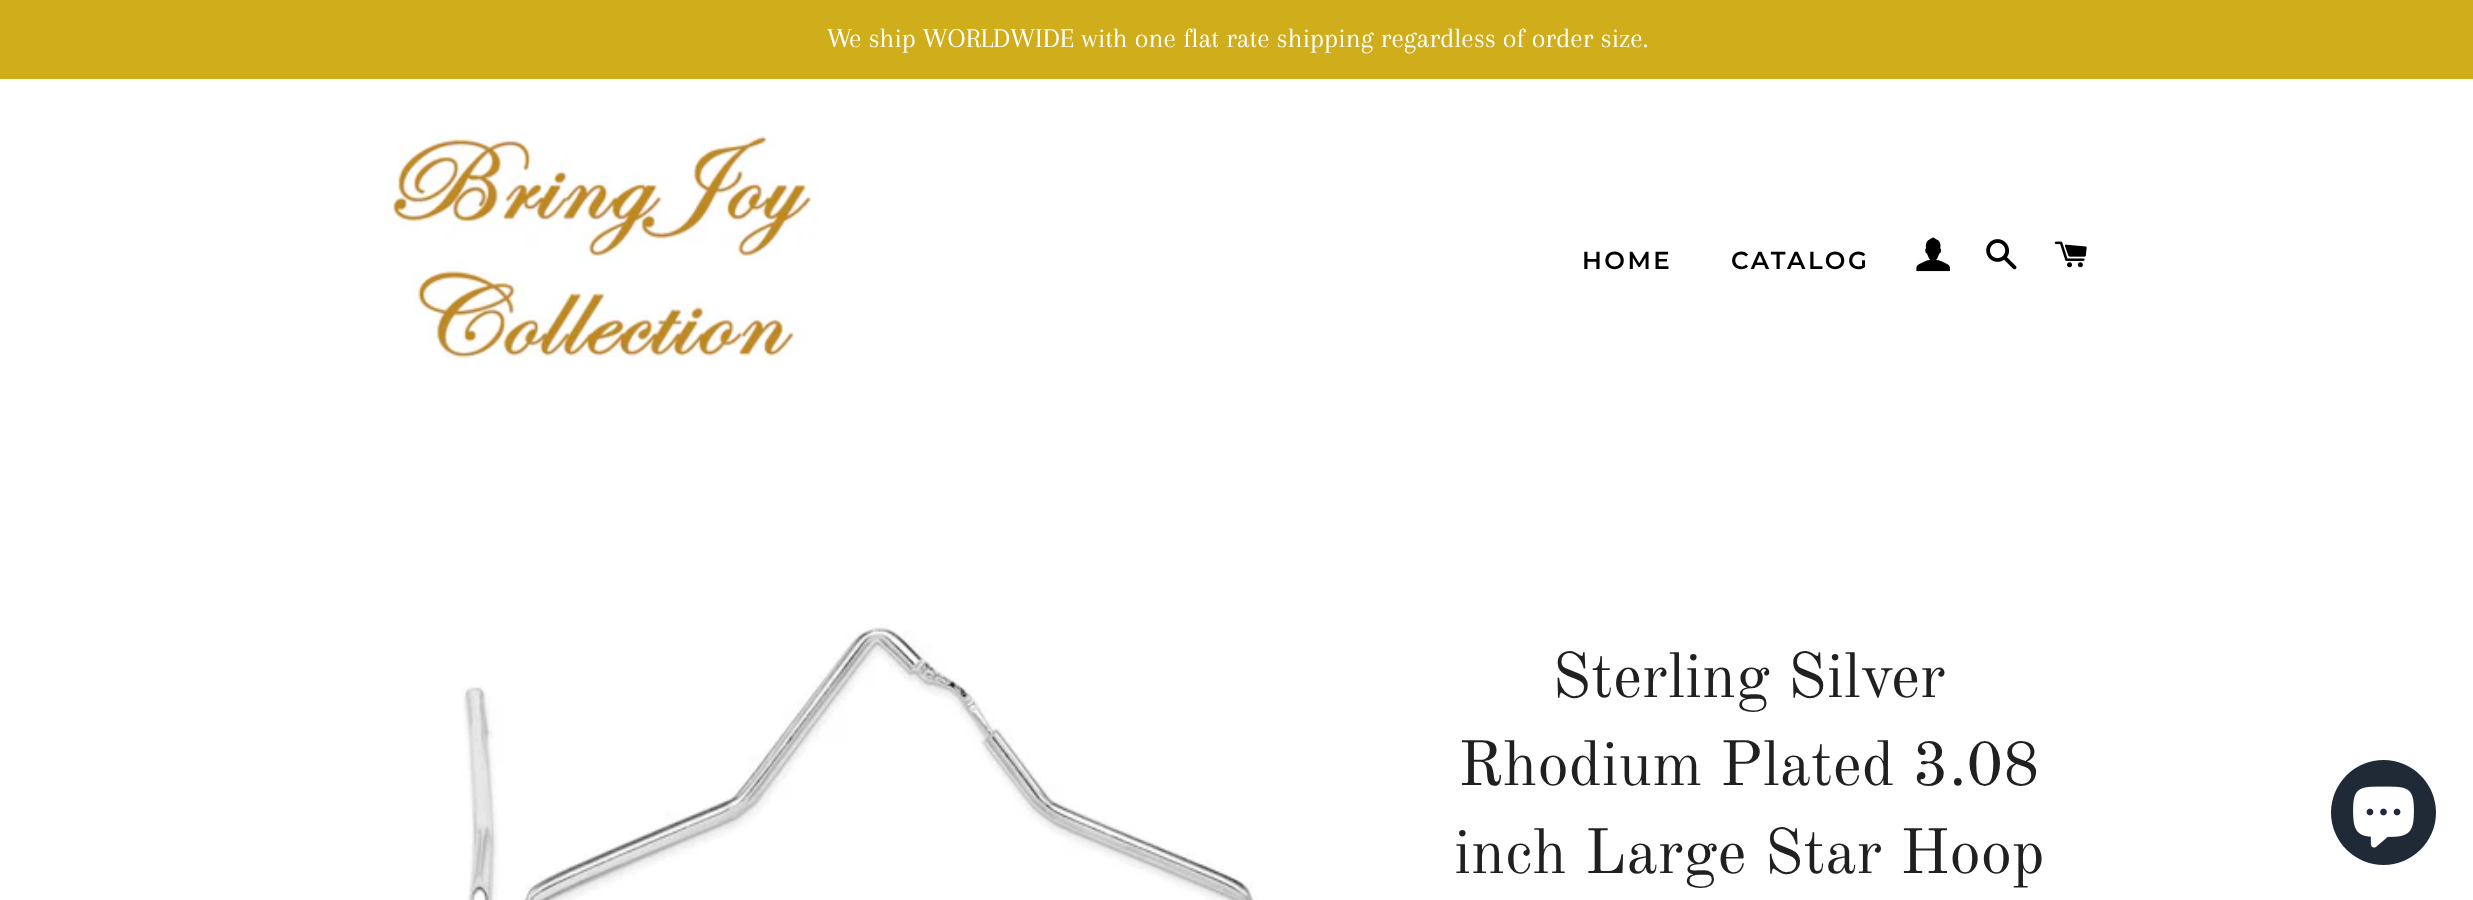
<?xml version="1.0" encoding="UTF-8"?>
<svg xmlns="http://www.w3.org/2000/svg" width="2473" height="900">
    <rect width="100%" height="100%" fill="#FFFFFF"/>
    <rect x="0" y="0" width="2473" height="79" fill="#CFAD1B"/>
    <text x="827" y="47" font-family="Arapey" font-size="28" fill="#FFFFFF">We ship WORLDWIDE with one flat rate shipping regardless of order size.</text>
    <image x="387" y="133" width="432" height="226" href="img_01.png"/>
    <text x="1582" y="269" font-family="Montserrat" font-size="24.5" font-weight="600" letter-spacing="2.5" fill="#000000">HOME</text>
    <text x="1731" y="269" font-family="Montserrat" font-size="24.5" font-weight="600" letter-spacing="2.5" fill="#000000">CATALOG</text>
    <image x="1916" y="237" width="34" height="35" href="img_02.png"/>
    <image x="1986" y="239" width="31" height="31" href="img_03.png"/>
    <image x="2054" y="241" width="33" height="27" href="img_04.png"/>
    <image x="427" y="574" width="875" height="326" href="img_05.png"/>
    <text x="1552" y="697" font-family="Old Standard TT" font-size="63" fill="#1F2021">Sterling Silver</text>
    <text x="1458" y="785" font-family="Old Standard TT" font-size="63" fill="#1F2021">Rhodium Plated 3.08</text>
    <text x="1454" y="873" font-family="Old Standard TT" font-size="63" fill="#1F2021">inch Large Star Hoop</text>
    <circle cx="2383.5" cy="812.5" r="52.5" fill="#202A36"/>
    <image x="2353" y="786" width="61" height="62" href="img_06.png"/>
</svg>
